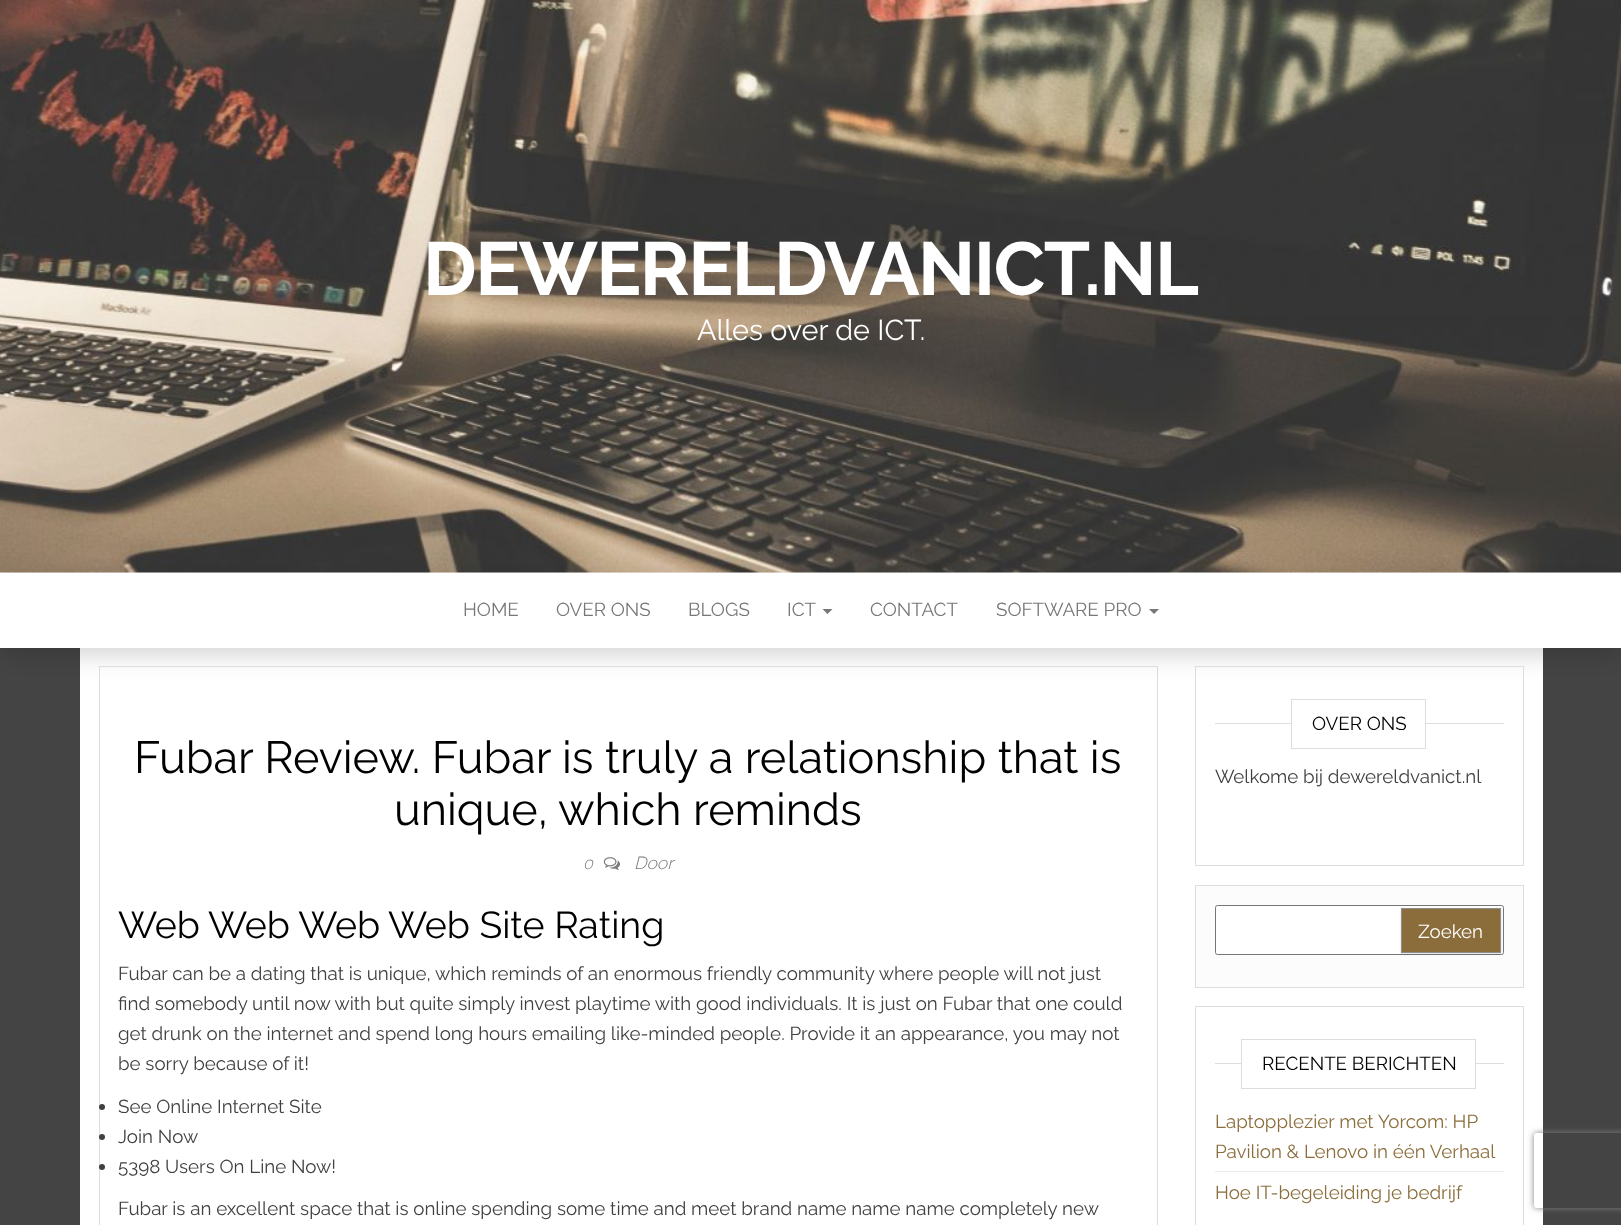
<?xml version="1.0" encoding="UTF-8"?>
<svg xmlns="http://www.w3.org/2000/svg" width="1621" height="1225">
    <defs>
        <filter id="blur1" x="-50%" y="-200%" width="200%" height="500%"><feGaussianBlur stdDeviation="12"/></filter>
        <filter id="blur2" x="-50%" y="-200%" width="200%" height="500%"><feGaussianBlur stdDeviation="1"/></filter>
        <clipPath id="clip1"><path d="M 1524 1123 H 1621 V 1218 H 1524 Z M 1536.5 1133 H 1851.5 C 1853 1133 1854 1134 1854 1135.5 V 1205.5 C 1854 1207 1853 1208 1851.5 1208 H 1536.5 C 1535 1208 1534 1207 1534 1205.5 V 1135.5 C 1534 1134 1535 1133 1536.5 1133 Z" clip-rule="evenodd"/></clipPath>
        <filter id="blur3" x="-50%" y="-200%" width="200%" height="500%"><feGaussianBlur stdDeviation="3"/></filter>
    </defs>
    <rect width="100%" height="100%" fill="#444444"/>
    <rect x="0" y="572" width="1621" height="1" fill="#FFFFFF"/>
    <image x="0" y="0" width="1621" height="573" href="img_01.png"/>
    <text x="423" y="295" font-family="Raleway" font-size="75" font-weight="700" letter-spacing="-1.5" fill="#FFFFFF">DEWERELDVANICT.NL</text>
    <text x="697" y="340" font-family="Raleway" font-size="28.75" fill="#FFFFFF">Alles over de ICT.</text>
    <rect x="80" y="648" width="1463" height="577" fill="#FFFFFF"/>
    <rect x="1" y="583" width="1619" height="72" fill="#000000" fill-opacity="0.17" filter="url(#blur1)"/>
    <rect x="0" y="573" width="1621" height="75" fill="#FFFFFF"/>
    <text x="463" y="616" font-family="Raleway" font-size="18.75" fill="#777777">HOME</text>
    <text x="556" y="616" font-family="Raleway" font-size="18.75" fill="#777777">OVER ONS</text>
    <text x="688" y="616" font-family="Raleway" font-size="18.75" fill="#777777">BLOGS</text>
    <text x="787" y="616" font-family="Raleway" font-size="18.75" fill="#777777">ICT</text>
    <path d="M 822.5 609 H 832.5 L 827.5 614 Z" fill="#777777"/>
    <text x="870" y="616" font-family="Raleway" font-size="18.75" fill="#777777">CONTACT</text>
    <text x="996" y="616" font-family="Raleway" font-size="18.75" fill="#777777">SOFTWARE PRO</text>
    <path d="M 1149 609 H 1159 L 1154 614 Z" fill="#777777"/>
    <rect x="99.5" y="666.5" width="1058" height="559" fill="none" stroke="#DDDDDD"/>
    <text x="134" y="773" font-family="Raleway" font-size="45" fill="#000000">Fubar Review. Fubar is truly a relationship that is</text>
    <text x="394" y="825" font-family="Raleway" font-size="45" fill="#000000">unique, which reminds</text>
    <text x="583" y="869" font-family="Raleway" font-size="16" font-weight="300" font-style="italic" fill="#777777">0</text>
    <image x="603" y="857" width="17" height="13" href="img_02.png"/>
    <text x="634" y="869" font-family="Raleway" font-size="17.5" font-weight="300" font-style="italic" fill="#777777">Door</text>
    <text x="118" y="938" font-family="Raleway" font-size="37.5" fill="#000000">Web Web Web</text>
    <text x="388" y="938" font-family="Raleway" font-size="37.5" fill="#000000">Web Site Rating</text>
    <text font-family="Raleway" font-size="18.75" fill="#404040">
        <tspan x="118" y="980">Fubar can be a dating that is unique, which reminds of an enormous friendly community where people will not just</tspan>
        <tspan x="118" y="1010">find somebody until now with but quite simply invest playtime with good individuals. It is just on Fubar that one could</tspan>
        <tspan x="118" y="1040">get drunk on the internet and spend long hours emailing like-minded people. Provide it an appearance, you may not</tspan>
        <tspan x="118" y="1070">be sorry because of it!</tspan>
    </text>
    <circle cx="102" cy="1107" r="3" fill="#404040"/>
    <text x="118" y="1113" font-family="Raleway" font-size="18.75" fill="#404040">See Online Internet Site</text>
    <circle cx="102" cy="1137" r="3" fill="#404040"/>
    <text x="118" y="1143" font-family="Raleway" font-size="18.75" fill="#404040">Join Now</text>
    <circle cx="102" cy="1167" r="3" fill="#404040"/>
    <text x="118" y="1173" font-family="Raleway" font-size="18.75" fill="#404040">5398 Users On Line Now!</text>
    <text x="118" y="1215" font-family="Raleway" font-size="18.75" fill="#404040">Fubar is an excellent space that is online spending some time and meet brand name name name completely new</text>
    <rect x="1195.5" y="666.5" width="328" height="199" fill="none" stroke="#DDDDDD"/>
    <rect x="1215" y="723" width="289" height="1" fill="#DDDDDD"/>
    <rect x="1292" y="723" width="133" height="1" fill="#FFFFFF"/>
    <rect x="1291.5" y="699.5" width="134" height="49" fill="none" stroke="#DDDDDD"/>
    <text x="1312" y="730" font-family="Raleway" font-size="18.75" fill="#000000">OVER ONS</text>
    <text x="1215" y="783" font-family="Raleway" font-size="18.75" fill="#404040">Welkome bij dewereldvanict.nl</text>
    <rect x="1195.5" y="885.5" width="328" height="102" fill="#FCFCFC" stroke="#DDDDDD"/>
    <rect x="1215.5" y="905.5" width="288" height="49" rx="2" fill="#FFFFFF" stroke="#767676"/>
    <rect x="1401" y="909" width="100" height="45" fill="#000000" fill-opacity="0.15" filter="url(#blur2)"/>
    <rect x="1401.5" y="908.5" width="99" height="44" fill="#8A6D3B" stroke="#8E8E8E"/>
    <text x="1418" y="938" font-family="Raleway" font-size="18.75" fill="#FFFFFF">Zoeken</text>
    <rect x="1195.5" y="1006.5" width="328" height="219" fill="none" stroke="#DDDDDD"/>
    <rect x="1215" y="1063" width="289" height="1" fill="#DDDDDD"/>
    <rect x="1242" y="1063" width="233" height="1" fill="#FFFFFF"/>
    <rect x="1241.5" y="1039.5" width="234" height="49" fill="none" stroke="#DDDDDD"/>
    <text x="1262" y="1070" font-family="Raleway" font-size="18.75" fill="#000000">RECENTE BERICHTEN</text>
    <rect x="1215" y="1171" width="289" height="1" fill="#E9E9E9"/>
    <text font-family="Raleway" font-size="18.75" fill="#8A6D3B">
        <tspan x="1215" y="1128">Laptopplezier met Yorcom: HP</tspan>
        <tspan x="1215" y="1158">Pavilion &amp; Lenovo in één Verhaal</tspan>
    </text>
    <text x="1215" y="1199" font-family="Raleway" font-size="18.75" fill="#8A6D3B">Hoe IT-begeleiding je bedrijf</text>
    <g clip-path="url(#clip1)">
        <rect x="1534" y="1133" width="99" height="75" rx="2.5" fill="#808080" filter="url(#blur3)"/>
    </g>
</svg>
